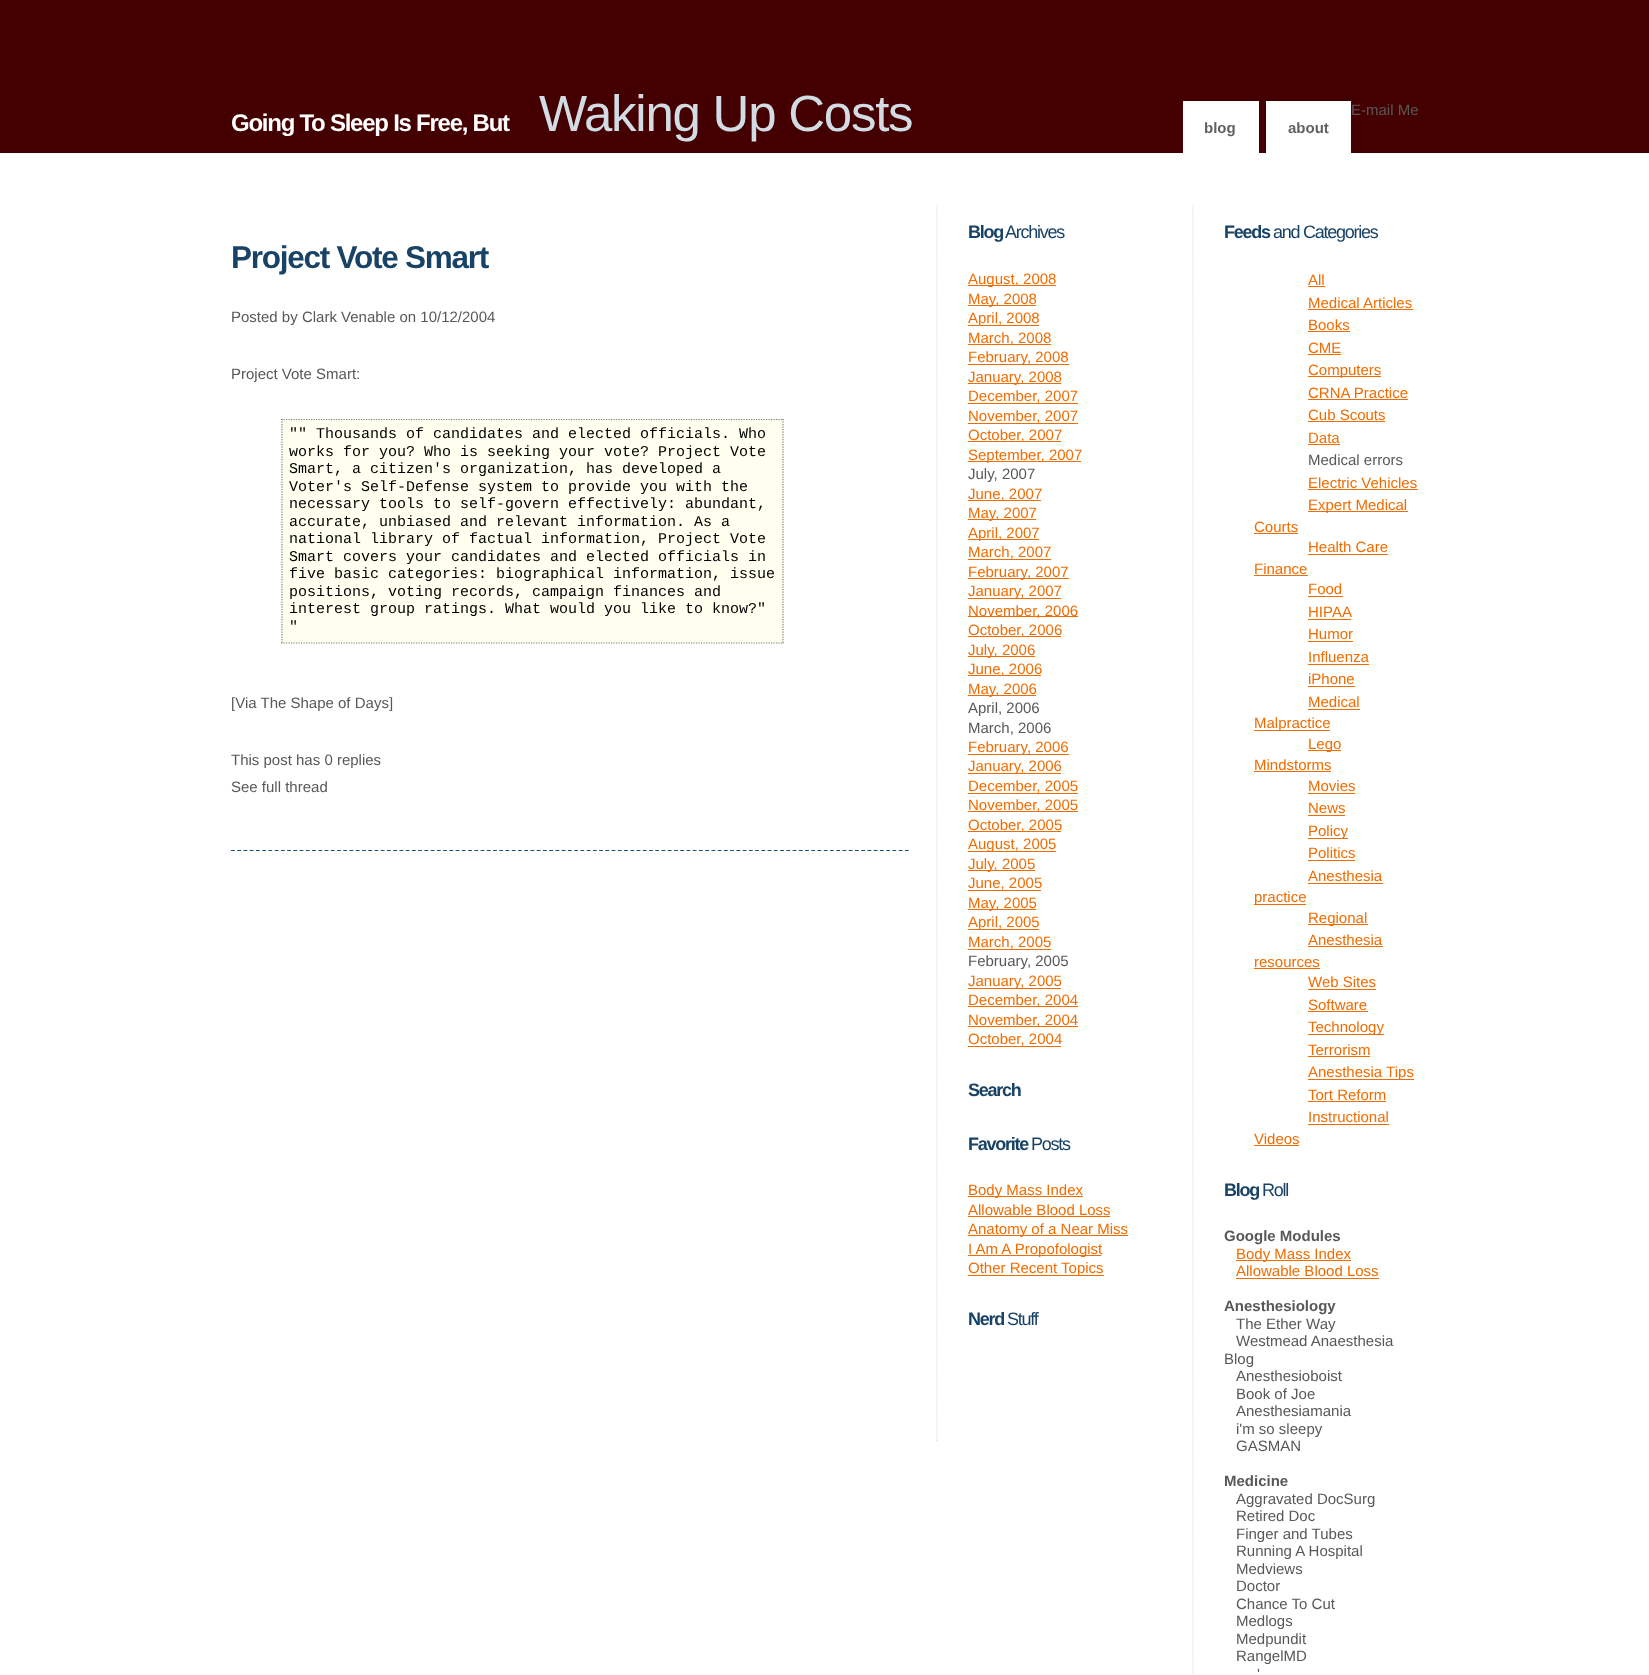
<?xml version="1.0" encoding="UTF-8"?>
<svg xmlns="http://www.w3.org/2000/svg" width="1649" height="1675">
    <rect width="100%" height="100%" fill="#FFFFFF"/>
    <rect x="0" y="0" width="1649" height="153" fill="#440000"/>
    <text x="231" y="131" font-family="Liberation Sans" font-size="24" font-weight="700" letter-spacing="-1.25" fill="#FFFFFF">Going To Sleep Is Free, But</text>
    <text x="539" y="131" font-family="Liberation Sans" font-size="51" letter-spacing="-1.25" fill="#D2DCE5">Waking Up Costs</text>
    <text x="1351" y="115" font-family="Liberation Sans" font-size="15" fill="#585858">E-mail Me</text>
    <rect x="1183" y="101" width="76" height="52" fill="#FFFFFF"/>
    <text x="1204" y="133" font-family="Liberation Sans" font-size="15" font-weight="700" fill="#616161">blog</text>
    <rect x="1266" y="101" width="85" height="52" fill="#FFFFFF"/>
    <text x="1288" y="133" font-family="Liberation Sans" font-size="15" font-weight="700" fill="#616161">about</text>
    <path d="M 231 850.5 H 909" fill="none" stroke="#174F66" stroke-width="1.2" stroke-dasharray="3.75 2.49"/>
    <text x="231" y="268" font-family="Liberation Sans" font-size="31.5" font-weight="700" letter-spacing="-1.25" fill="#184366">Project Vote Smart</text>
    <text x="231" y="322" font-family="Liberation Sans" font-size="15" fill="#585858">Posted by Clark Venable on 10/12/2004</text>
    <text x="231" y="379" font-family="Liberation Sans" font-size="15" fill="#585858">Project Vote Smart:</text>
    <rect x="281" y="419" width="503" height="225" fill="#FFFFF0"/>
    <path d="M 281 419.5 H 784" fill="none" stroke="#808080" stroke-width="1.2" stroke-dasharray="1.25 1.25"/>
    <path d="M 783 419 V 644" fill="none" stroke="#808080" stroke-width="1.2" stroke-dasharray="1.25 1.25"/>
    <path d="M 281 643 H 784" fill="none" stroke="#808080" stroke-width="1.2" stroke-dasharray="1.25 1.25"/>
    <path d="M 282 419 V 644" fill="none" stroke="#808080" stroke-width="1.2" stroke-dasharray="1.25 1.25"/>
    <text font-family="Liberation Mono" font-size="15" fill="#000000">
        <tspan x="289" y="438">"" Thousands of candidates and elected officials. Who</tspan>
        <tspan x="289" y="456">works for you? Who is seeking your vote? Project Vote</tspan>
        <tspan x="289" y="473">Smart, a citizen's organization, has developed a</tspan>
        <tspan x="289" y="491">Voter's Self-Defense system to provide you with the</tspan>
        <tspan x="289" y="508">necessary tools to self-govern effectively: abundant,</tspan>
        <tspan x="289" y="526">accurate, unbiased and relevant information. As a</tspan>
        <tspan x="289" y="543">national library of factual information, Project Vote</tspan>
        <tspan x="289" y="561">Smart covers your candidates and elected officials in</tspan>
        <tspan x="289" y="578">five basic categories: biographical information, issue</tspan>
        <tspan x="289" y="596">positions, voting records, campaign finances and</tspan>
        <tspan x="289" y="613">interest group ratings. What would you like to know?"</tspan>
        <tspan x="289" y="631">"</tspan>
    </text>
    <text x="231" y="708" font-family="Liberation Sans" font-size="15" fill="#585858">[Via The Shape of Days]</text>
    <text font-family="Liberation Sans" font-size="15" fill="#585858">
        <tspan x="231" y="765">This post has 0 replies</tspan>
        <tspan x="231" y="792">See full thread</tspan>
    </text>
    <path d="M 937 205 V 1442.5" fill="none" stroke="#E1E1E1" stroke-width="1.2" stroke-dasharray="1.25 1.25"/>
    <text x="968" y="238" font-family="Liberation Sans" font-size="18" font-weight="700" letter-spacing="-1.25" fill="#184366">Blog</text>
    <text x="1005" y="238" font-family="Liberation Sans" font-size="18" letter-spacing="-1.25" fill="#184366">Archives</text>
    <rect x="968" y="285" width="88" height="1" fill="#F16C00"/>
    <text x="968" y="284" font-family="Liberation Sans" font-size="15" fill="#F16C00">August, 2008</text>
    <rect x="968" y="305" width="68" height="1" fill="#F16C00"/>
    <text x="968" y="304" font-family="Liberation Sans" font-size="15" fill="#F16C00">May, 2008</text>
    <rect x="968" y="325" width="71" height="1" fill="#F16C00"/>
    <text x="968" y="323" font-family="Liberation Sans" font-size="15" fill="#F16C00">April, 2008</text>
    <rect x="968" y="344" width="83" height="1" fill="#F16C00"/>
    <text x="968" y="343" font-family="Liberation Sans" font-size="15" fill="#F16C00">March, 2008</text>
    <rect x="968" y="364" width="101" height="1" fill="#F16C00"/>
    <text x="968" y="362" font-family="Liberation Sans" font-size="15" fill="#F16C00">February, 2008</text>
    <rect x="968" y="383" width="93" height="1" fill="#F16C00"/>
    <text font-family="Liberation Sans" font-size="15" fill="#F16C00">
        <tspan x="968" y="382">January, 2008</tspan>
        <tspan x="968" y="401">December, 2007</tspan>
    </text>
    <rect x="968" y="403" width="110" height="1" fill="#F16C00"/>
    <text x="968" y="421" font-family="Liberation Sans" font-size="15" fill="#F16C00">November, 2007</text>
    <rect x="968" y="423" width="110" height="1" fill="#F16C00"/>
    <rect x="968" y="441" width="93" height="1" fill="#F16C00"/>
    <text x="968" y="440" font-family="Liberation Sans" font-size="15" fill="#F16C00">October, 2007</text>
    <rect x="968" y="461" width="113" height="1" fill="#F16C00"/>
    <text x="968" y="460" font-family="Liberation Sans" font-size="15" fill="#F16C00">September, 2007</text>
    <text x="968" y="479" font-family="Liberation Sans" font-size="15" fill="#585858">July, 2007</text>
    <rect x="968" y="500" width="73" height="1" fill="#F16C00"/>
    <text x="968" y="499" font-family="Liberation Sans" font-size="15" fill="#F16C00">June, 2007</text>
    <rect x="968" y="519" width="68" height="1" fill="#F16C00"/>
    <text x="968" y="518" font-family="Liberation Sans" font-size="15" fill="#F16C00">May, 2007</text>
    <rect x="968" y="539" width="71" height="1" fill="#F16C00"/>
    <text font-family="Liberation Sans" font-size="15" fill="#F16C00">
        <tspan x="968" y="538">April, 2007</tspan>
        <tspan x="968" y="557">March, 2007</tspan>
    </text>
    <rect x="968" y="559" width="83" height="1" fill="#F16C00"/>
    <rect x="968" y="578" width="101" height="1" fill="#F16C00"/>
    <text x="968" y="577" font-family="Liberation Sans" font-size="15" fill="#F16C00">February, 2007</text>
    <rect x="968" y="598" width="93" height="1" fill="#F16C00"/>
    <text x="968" y="596" font-family="Liberation Sans" font-size="15" fill="#F16C00">January, 2007</text>
    <rect x="968" y="616" width="110" height="1" fill="#F16C00"/>
    <text x="968" y="616" font-family="Liberation Sans" font-size="15" fill="#F16C00">November, 2006</text>
    <rect x="968" y="636" width="93" height="1" fill="#F16C00"/>
    <text x="968" y="635" font-family="Liberation Sans" font-size="15" fill="#F16C00">October, 2006</text>
    <rect x="968" y="656" width="67" height="1" fill="#F16C00"/>
    <text x="968" y="655" font-family="Liberation Sans" font-size="15" fill="#F16C00">July, 2006</text>
    <rect x="968" y="675" width="73" height="1" fill="#F16C00"/>
    <text x="968" y="674" font-family="Liberation Sans" font-size="15" fill="#F16C00">June, 2006</text>
    <rect x="968" y="695" width="68" height="1" fill="#F16C00"/>
    <text x="968" y="694" font-family="Liberation Sans" font-size="15" fill="#F16C00">May, 2006</text>
    <text font-family="Liberation Sans" font-size="15" fill="#585858">
        <tspan x="968" y="713">April, 2006</tspan>
        <tspan x="968" y="733">March, 2006</tspan>
    </text>
    <rect x="968" y="754" width="101" height="1" fill="#F16C00"/>
    <text x="968" y="752" font-family="Liberation Sans" font-size="15" fill="#F16C00">February, 2006</text>
    <rect x="968" y="773" width="93" height="1" fill="#F16C00"/>
    <text font-family="Liberation Sans" font-size="15" fill="#F16C00">
        <tspan x="968" y="771">January, 2006</tspan>
        <tspan x="968" y="791">December, 2005</tspan>
    </text>
    <rect x="968" y="793" width="110" height="1" fill="#F16C00"/>
    <rect x="968" y="811" width="110" height="1" fill="#F16C00"/>
    <text x="968" y="810" font-family="Liberation Sans" font-size="15" fill="#F16C00">November, 2005</text>
    <rect x="968" y="831" width="93" height="1" fill="#F16C00"/>
    <text x="968" y="830" font-family="Liberation Sans" font-size="15" fill="#F16C00">October, 2005</text>
    <rect x="968" y="851" width="88" height="1" fill="#F16C00"/>
    <text x="968" y="849" font-family="Liberation Sans" font-size="15" fill="#F16C00">August, 2005</text>
    <rect x="968" y="870" width="67" height="1" fill="#F16C00"/>
    <text font-family="Liberation Sans" font-size="15" fill="#F16C00">
        <tspan x="968" y="869">July, 2005</tspan>
        <tspan x="968" y="888">June, 2005</tspan>
    </text>
    <rect x="968" y="890" width="73" height="1" fill="#F16C00"/>
    <rect x="968" y="909" width="68" height="1" fill="#F16C00"/>
    <text x="968" y="908" font-family="Liberation Sans" font-size="15" fill="#F16C00">May, 2005</text>
    <rect x="968" y="929" width="71" height="1" fill="#F16C00"/>
    <text font-family="Liberation Sans" font-size="15" fill="#F16C00">
        <tspan x="968" y="927">April, 2005</tspan>
        <tspan x="968" y="947">March, 2005</tspan>
    </text>
    <rect x="968" y="949" width="83" height="1" fill="#F16C00"/>
    <text x="968" y="966" font-family="Liberation Sans" font-size="15" fill="#585858">February, 2005</text>
    <rect x="968" y="988" width="93" height="1" fill="#F16C00"/>
    <text x="968" y="986" font-family="Liberation Sans" font-size="15" fill="#F16C00">January, 2005</text>
    <rect x="968" y="1006" width="110" height="1" fill="#F16C00"/>
    <text x="968" y="1005" font-family="Liberation Sans" font-size="15" fill="#F16C00">December, 2004</text>
    <rect x="968" y="1026" width="110" height="1" fill="#F16C00"/>
    <text font-family="Liberation Sans" font-size="15" fill="#F16C00">
        <tspan x="968" y="1025">November, 2004</tspan>
        <tspan x="968" y="1044">October, 2004</tspan>
    </text>
    <rect x="968" y="1046" width="93" height="1" fill="#F16C00"/>
    <text x="968" y="1096" font-family="Liberation Sans" font-size="18" font-weight="700" letter-spacing="-1.25" fill="#184366">Search</text>
    <text x="968" y="1150" font-family="Liberation Sans" font-size="18" font-weight="700" letter-spacing="-1.25" fill="#184366">Favorite</text>
    <text x="1031" y="1150" font-family="Liberation Sans" font-size="18" letter-spacing="-1.25" fill="#184366">Posts</text>
    <rect x="968" y="1196" width="115" height="1" fill="#F16C00"/>
    <text font-family="Liberation Sans" font-size="15" fill="#F16C00">
        <tspan x="968" y="1195">Body Mass Index</tspan>
        <tspan x="968" y="1215">Allowable Blood Loss</tspan>
    </text>
    <rect x="968" y="1216" width="142" height="1" fill="#F16C00"/>
    <rect x="968" y="1235" width="160" height="1" fill="#F16C00"/>
    <text x="968" y="1234" font-family="Liberation Sans" font-size="15" fill="#F16C00">Anatomy of a Near Miss</text>
    <rect x="968" y="1255" width="133" height="1" fill="#F16C00"/>
    <text x="968" y="1254" font-family="Liberation Sans" font-size="15" fill="#F16C00">I Am A Propofologist</text>
    <rect x="968" y="1275" width="136" height="1" fill="#F16C00"/>
    <text x="968" y="1273" font-family="Liberation Sans" font-size="15" fill="#F16C00">Other Recent Topics</text>
    <text x="968" y="1325" font-family="Liberation Sans" font-size="18" font-weight="700" letter-spacing="-1.25" fill="#184366">Nerd</text>
    <text x="1007" y="1325" font-family="Liberation Sans" font-size="18" letter-spacing="-1.25" fill="#184366">Stuff</text>
    <path d="M 1193 205 V 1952.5" fill="none" stroke="#E1E1E1" stroke-width="1.2" stroke-dasharray="1.25 1.25"/>
    <text x="1224" y="238" font-family="Liberation Sans" font-size="18" font-weight="700" letter-spacing="-1.25" fill="#184366">Feeds</text>
    <text x="1273" y="238" font-family="Liberation Sans" font-size="18" letter-spacing="-1.25" fill="#184366">and Categories</text>
    <text x="1308" y="285" font-family="Liberation Sans" font-size="15" fill="#F16C00">All</text>
    <rect x="1308" y="286" width="17" height="1" fill="#F16C00"/>
    <text x="1308" y="308" font-family="Liberation Sans" font-size="15" fill="#F16C00">Medical Articles</text>
    <rect x="1308" y="309" width="105" height="1" fill="#F16C00"/>
    <text x="1308" y="330" font-family="Liberation Sans" font-size="15" fill="#F16C00">Books</text>
    <rect x="1308" y="331" width="42" height="1" fill="#F16C00"/>
    <text x="1308" y="353" font-family="Liberation Sans" font-size="15" fill="#F16C00">CME</text>
    <rect x="1308" y="354" width="33" height="1" fill="#F16C00"/>
    <rect x="1308" y="376" width="73" height="1" fill="#F16C00"/>
    <text font-family="Liberation Sans" font-size="15" fill="#F16C00">
        <tspan x="1308" y="375">Computers</tspan>
        <tspan x="1308" y="398">CRNA Practice</tspan>
    </text>
    <rect x="1308" y="399" width="100" height="1" fill="#F16C00"/>
    <text x="1308" y="420" font-family="Liberation Sans" font-size="15" fill="#F16C00">Cub Scouts</text>
    <rect x="1308" y="421" width="77" height="1" fill="#F16C00"/>
    <text x="1308" y="443" font-family="Liberation Sans" font-size="15" fill="#F16C00">Data</text>
    <rect x="1308" y="444" width="32" height="1" fill="#F16C00"/>
    <text x="1308" y="465" font-family="Liberation Sans" font-size="15" fill="#585858">Medical errors</text>
    <text x="1308" y="488" font-family="Liberation Sans" font-size="15" fill="#F16C00">Electric Vehicles</text>
    <rect x="1308" y="489" width="110" height="1" fill="#F16C00"/>
    <rect x="1308" y="511" width="100" height="1" fill="#F16C00"/>
    <text x="1308" y="510" font-family="Liberation Sans" font-size="15" fill="#F16C00">Expert Medical</text>
    <text x="1254" y="532" font-family="Liberation Sans" font-size="15" fill="#F16C00">Courts</text>
    <rect x="1254" y="533" width="44" height="1" fill="#F16C00"/>
    <text x="1308" y="552" font-family="Liberation Sans" font-size="15" fill="#F16C00">Health Care</text>
    <rect x="1308" y="554" width="80" height="1" fill="#F16C00"/>
    <text x="1254" y="574" font-family="Liberation Sans" font-size="15" fill="#F16C00">Finance</text>
    <rect x="1254" y="575" width="54" height="1" fill="#F16C00"/>
    <text x="1308" y="594" font-family="Liberation Sans" font-size="15" fill="#F16C00">Food</text>
    <rect x="1308" y="596" width="35" height="1" fill="#F16C00"/>
    <text x="1308" y="617" font-family="Liberation Sans" font-size="15" fill="#F16C00">HIPAA</text>
    <rect x="1308" y="619" width="43" height="1" fill="#F16C00"/>
    <text x="1308" y="639" font-family="Liberation Sans" font-size="15" fill="#F16C00">Humor</text>
    <rect x="1308" y="641" width="45" height="1" fill="#F16C00"/>
    <text x="1308" y="662" font-family="Liberation Sans" font-size="15" fill="#F16C00">Influenza</text>
    <rect x="1308" y="664" width="61" height="1" fill="#F16C00"/>
    <text x="1308" y="684" font-family="Liberation Sans" font-size="15" fill="#F16C00">iPhone</text>
    <rect x="1308" y="686" width="47" height="1" fill="#F16C00"/>
    <text x="1308" y="707" font-family="Liberation Sans" font-size="15" fill="#F16C00">Medical</text>
    <rect x="1308" y="709" width="52" height="1" fill="#F16C00"/>
    <rect x="1254" y="730" width="76" height="1" fill="#F16C00"/>
    <text x="1254" y="728" font-family="Liberation Sans" font-size="15" fill="#F16C00">Malpractice</text>
    <rect x="1308" y="750" width="33" height="1" fill="#F16C00"/>
    <text x="1308" y="749" font-family="Liberation Sans" font-size="15" fill="#F16C00">Lego</text>
    <text x="1254" y="770" font-family="Liberation Sans" font-size="15" fill="#F16C00">Mindstorms</text>
    <rect x="1254" y="771" width="77" height="1" fill="#F16C00"/>
    <text x="1308" y="791" font-family="Liberation Sans" font-size="15" fill="#F16C00">Movies</text>
    <rect x="1308" y="793" width="47" height="1" fill="#F16C00"/>
    <text x="1308" y="813" font-family="Liberation Sans" font-size="15" fill="#F16C00">News</text>
    <rect x="1308" y="815" width="37" height="1" fill="#F16C00"/>
    <rect x="1308" y="838" width="40" height="1" fill="#F16C00"/>
    <text font-family="Liberation Sans" font-size="15" fill="#F16C00">
        <tspan x="1308" y="836">Policy</tspan>
        <tspan x="1308" y="858">Politics</tspan>
    </text>
    <rect x="1308" y="860" width="47" height="1" fill="#F16C00"/>
    <text x="1308" y="881" font-family="Liberation Sans" font-size="15" fill="#F16C00">Anesthesia</text>
    <rect x="1308" y="883" width="75" height="1" fill="#F16C00"/>
    <rect x="1254" y="904" width="52" height="1" fill="#F16C00"/>
    <text x="1254" y="902" font-family="Liberation Sans" font-size="15" fill="#F16C00">practice</text>
    <rect x="1308" y="924" width="60" height="1" fill="#F16C00"/>
    <text font-family="Liberation Sans" font-size="15" fill="#F16C00">
        <tspan x="1308" y="923">Regional</tspan>
        <tspan x="1308" y="945">Anesthesia</tspan>
    </text>
    <rect x="1308" y="946" width="75" height="1" fill="#F16C00"/>
    <text x="1254" y="967" font-family="Liberation Sans" font-size="15" fill="#F16C00">resources</text>
    <rect x="1254" y="968" width="66" height="1" fill="#F16C00"/>
    <text x="1308" y="987" font-family="Liberation Sans" font-size="15" fill="#F16C00">Web Sites</text>
    <rect x="1308" y="989" width="68" height="1" fill="#F16C00"/>
    <text x="1308" y="1010" font-family="Liberation Sans" font-size="15" fill="#F16C00">Software</text>
    <rect x="1308" y="1011" width="60" height="1" fill="#F16C00"/>
    <rect x="1308" y="1034" width="76" height="1" fill="#F16C00"/>
    <text font-family="Liberation Sans" font-size="15" fill="#F16C00">
        <tspan x="1308" y="1032">Technology</tspan>
        <tspan x="1308" y="1055">Terrorism</tspan>
    </text>
    <rect x="1308" y="1056" width="62" height="1" fill="#F16C00"/>
    <rect x="1308" y="1079" width="106" height="1" fill="#F16C00"/>
    <text font-family="Liberation Sans" font-size="15" fill="#F16C00">
        <tspan x="1308" y="1077">Anesthesia Tips</tspan>
        <tspan x="1308" y="1100">Tort Reform</tspan>
    </text>
    <rect x="1308" y="1101" width="78" height="1" fill="#F16C00"/>
    <text x="1308" y="1122" font-family="Liberation Sans" font-size="15" fill="#F16C00">Instructional</text>
    <rect x="1308" y="1124" width="81" height="1" fill="#F16C00"/>
    <text x="1254" y="1144" font-family="Liberation Sans" font-size="15" fill="#F16C00">Videos</text>
    <rect x="1254" y="1145" width="45" height="1" fill="#F16C00"/>
    <text x="1224" y="1196" font-family="Liberation Sans" font-size="18" font-weight="700" letter-spacing="-1.25" fill="#184366">Blog</text>
    <text x="1262" y="1196" font-family="Liberation Sans" font-size="18" letter-spacing="-1.25" fill="#184366">Roll</text>
    <text x="1224" y="1241" font-family="Liberation Sans" font-size="15" font-weight="700" fill="#585858">Google Modules</text>
    <rect x="1236" y="1260" width="115" height="1" fill="#F16C00"/>
    <text font-family="Liberation Sans" font-size="15" fill="#F16C00">
        <tspan x="1236" y="1259">Body Mass Index</tspan>
        <tspan x="1236" y="1276">Allowable Blood Loss</tspan>
    </text>
    <rect x="1236" y="1278" width="143" height="1" fill="#F16C00"/>
    <text x="1224" y="1311" font-family="Liberation Sans" font-size="15" font-weight="700" fill="#585858">Anesthesiology</text>
    <text font-family="Liberation Sans" font-size="15" fill="#585858">
        <tspan x="1236" y="1329">The Ether Way</tspan>
        <tspan x="1236" y="1346">Westmead Anaesthesia</tspan>
    </text>
    <text x="1224" y="1364" font-family="Liberation Sans" font-size="15" fill="#585858">Blog</text>
    <text font-family="Liberation Sans" font-size="15" fill="#585858">
        <tspan x="1236" y="1381">Anesthesioboist</tspan>
        <tspan x="1236" y="1399">Book of Joe</tspan>
        <tspan x="1236" y="1416">Anesthesiamania</tspan>
        <tspan x="1236" y="1434">i'm so sleepy</tspan>
        <tspan x="1236" y="1451">GASMAN</tspan>
    </text>
    <text x="1224" y="1486" font-family="Liberation Sans" font-size="15" font-weight="700" fill="#585858">Medicine</text>
    <text font-family="Liberation Sans" font-size="15" fill="#585858">
        <tspan x="1236" y="1504">Aggravated DocSurg</tspan>
        <tspan x="1236" y="1521">Retired Doc</tspan>
        <tspan x="1236" y="1539">Finger and Tubes</tspan>
        <tspan x="1236" y="1556">Running A Hospital</tspan>
        <tspan x="1236" y="1574">Medviews</tspan>
        <tspan x="1236" y="1591">Doctor</tspan>
        <tspan x="1236" y="1609">Chance To Cut</tspan>
        <tspan x="1236" y="1626">Medlogs</tspan>
        <tspan x="1236" y="1644">Medpundit</tspan>
        <tspan x="1236" y="1661">RangelMD</tspan>
    </text>
    <text x="1257" y="1679" font-family="Liberation Sans" font-size="15" fill="#585858">'</text>
</svg>
